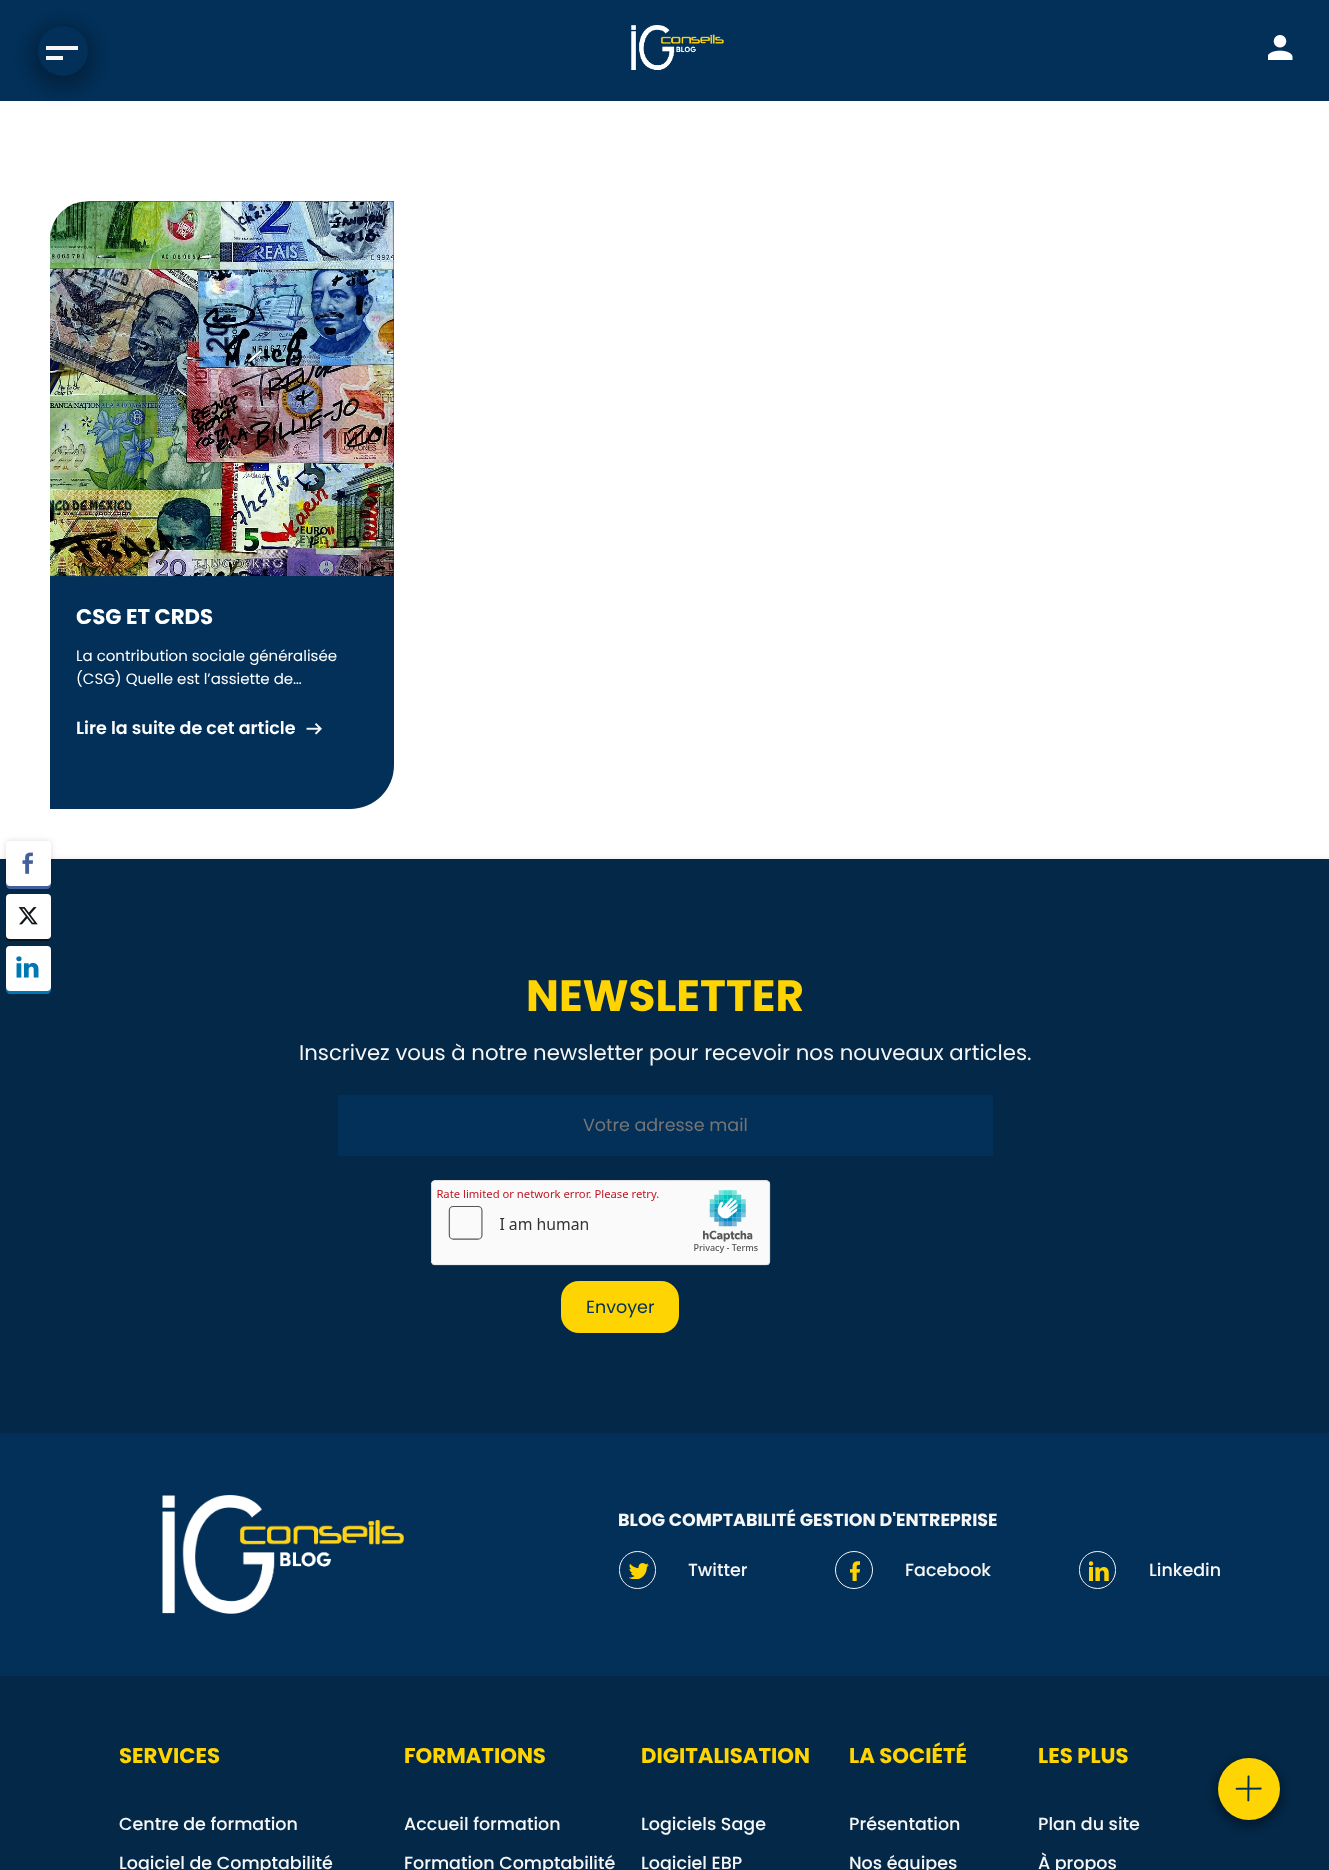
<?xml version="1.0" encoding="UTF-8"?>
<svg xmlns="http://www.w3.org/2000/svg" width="1329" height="1870">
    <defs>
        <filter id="blur1" x="-50%" y="-200%" width="200%" height="500%"><feGaussianBlur stdDeviation="9.5"/></filter>
        <filter id="blur2" x="-50%" y="-200%" width="200%" height="500%"><feGaussianBlur stdDeviation="4"/></filter>
        <filter id="blur3" x="-50%" y="-200%" width="200%" height="500%"><feGaussianBlur stdDeviation="3"/></filter>
    </defs>
    <rect width="100%" height="100%" fill="#FFFFFF"/>
    <rect x="0" y="0" width="1329" height="101" fill="#023059"/>
    <rect x="30" y="24" width="65" height="65" rx="32.5" fill="#000000" fill-opacity="0.3" filter="url(#blur1)"/>
    <circle cx="63" cy="51" r="25" fill="#023059"/>
    <rect x="46" y="46" width="32" height="4" fill="#F6F6F6"/>
    <rect x="46" y="56" width="17" height="4" fill="#F6F6F6"/>
    <image x="631" y="25" width="93" height="45" href="img_01.png"/>
    <image x="1268" y="35" width="25" height="25" href="img_02.png"/>
    <path d="M 94 201 H 394 V 765 C 394 789.5 374.5 809 350 809 H 50 V 245 C 50 220.5 69.5 201 94 201 Z" fill="#023059"/>
    <image x="50" y="201" width="344" height="376" href="img_03.png"/>
    <text x="76" y="624" font-family="Poppins" font-size="21.25" font-weight="700" fill="#FFFFFF">CSG ET CRDS</text>
    <text font-family="Poppins" font-size="15" fill="#FFFFFF">
        <tspan x="76" y="661">La contribution sociale généralisée</tspan>
        <tspan x="76" y="684">(CSG) Quelle est l’assiette de…</tspan>
    </text>
    <text x="76" y="734" font-family="Poppins" font-size="17.5" font-weight="600" fill="#FFFFFF">Lire la suite de cet article</text>
    <image x="306" y="723" width="16" height="12" href="img_04.png"/>
    <rect x="0" y="863" width="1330" height="573" fill="#000000" fill-opacity="0.3" filter="url(#blur2)"/>
    <rect x="0" y="859" width="1329" height="574" fill="#032848"/>
    <rect x="6" y="841" width="45" height="45" rx="4" fill="#000000" fill-opacity="0.13" filter="url(#blur3)"/>
    <path d="M 6 847 V 885 C 6 887 8 889 10 889 H 47 C 49 889 51 887 51 885 V 884 C 50 885 49 886 48 886 H 10 C 8 886 6 885 6 882 Z" fill="#43609C"/>
    <rect x="6" y="841" width="45" height="45" rx="4" fill="#FFFFFF"/>
    <image x="22" y="852" width="11" height="22" href="img_05.png"/>
    <path d="M 6 899 V 931 C 6 934 5 940 9 941 H 41 C 45 941 51 942 51 936 C 50 938 49 939 48 939 H 10 C 8 939 6 937 6 935 Z" fill="#0F1419"/>
    <rect x="6" y="894" width="45" height="45" rx="4" fill="#FFFFFF"/>
    <image x="18" y="907" width="20" height="18" href="img_06.png"/>
    <path d="M 6 952 V 990 C 6 992 8 994 10 994 H 47 C 49 994 51 992 51 990 V 989 C 50 990 49 991 48 991 H 10 C 8 991 6 990 6 988 Z" fill="#0077B5"/>
    <rect x="6" y="946" width="45" height="45" rx="4" fill="#FFFFFF"/>
    <image x="16" y="956" width="23" height="22" href="img_07.png"/>
    <text x="526" y="1011" font-family="Poppins" font-size="43.75" font-weight="700" fill="#FFD403">NEWSLETTER</text>
    <text x="299" y="1060" font-family="Poppins" font-size="21.25" fill="#F6F6F6">Inscrivez vous à notre newsletter pour recevoir nos nouveaux articles.</text>
    <rect x="338" y="1095" width="655" height="61" fill="#023059"/>
    <text x="583" y="1131" font-family="Poppins" font-size="17.5" fill="#757575">Votre adresse mail</text>
    <image x="431" y="1180" width="340" height="86" href="img_08.png"/>
    <rect x="561" y="1281" width="118" height="52" rx="18" fill="#FFD403"/>
    <text x="586" y="1313" font-family="Poppins" font-size="17.5" fill="#023059">Envoyer</text>
    <rect x="0" y="1433" width="1329" height="243" fill="#023059"/>
    <image x="162" y="1495" width="242" height="119" href="img_09.png"/>
    <text x="618" y="1526" font-family="Poppins" font-size="17.5" font-weight="700" fill="#F6F6F6">BLOG COMPTABILITÉ GESTION D'ENTREPRISE</text>
    <rect x="619.5" y="1551.5" width="36" height="37" rx="18" fill="none" stroke="#F6F6F6"/>
    <image x="629" y="1563" width="20" height="16" href="img_10.png"/>
    <text x="688" y="1576" font-family="Poppins" font-size="17.5" font-weight="500" fill="#F6F6F6">Twitter</text>
    <circle cx="854" cy="1570" r="18.5" fill="none" stroke="#F6F6F6"/>
    <image x="850" y="1561" width="10" height="20" href="img_11.png"/>
    <text x="905" y="1576" font-family="Poppins" font-size="17.5" font-weight="500" fill="#F6F6F6">Facebook</text>
    <rect x="1079.5" y="1551.5" width="36" height="37" rx="18" fill="none" stroke="#F6F6F6"/>
    <image x="1089" y="1561" width="20" height="20" href="img_12.png"/>
    <text x="1149" y="1576" font-family="Poppins" font-size="17.5" font-weight="500" fill="#F6F6F6">Linkedin</text>
    <rect x="0" y="1676" width="1329" height="194" fill="#032848"/>
    <text x="119" y="1763" font-family="Poppins" font-size="21.25" font-weight="700" fill="#FFD403">SERVICES</text>
    <text x="119" y="1830" font-family="Poppins" font-size="17.5" font-weight="500" fill="#F6F6F6">Centre de formation</text>
    <text x="119" y="1869" font-family="Poppins" font-size="17.5" font-weight="500" fill="#F6F6F6">Logiciel de Comptabilité</text>
    <text x="404" y="1763" font-family="Poppins" font-size="21.25" font-weight="700" fill="#FFD403">FORMATIONS</text>
    <text x="404" y="1830" font-family="Poppins" font-size="17.5" font-weight="500" fill="#F6F6F6">Accueil formation</text>
    <text x="404" y="1869" font-family="Poppins" font-size="17.5" font-weight="500" fill="#F6F6F6">Formation Comptabilité</text>
    <text x="641" y="1763" font-family="Poppins" font-size="21.25" font-weight="700" fill="#FFD403">DIGITALISATION</text>
    <text x="641" y="1830" font-family="Poppins" font-size="17.5" font-weight="500" fill="#F6F6F6">Logiciels Sage</text>
    <text x="641" y="1869" font-family="Poppins" font-size="17.5" font-weight="500" fill="#F6F6F6">Logiciel EBP</text>
    <text x="849" y="1763" font-family="Poppins" font-size="21.25" font-weight="700" fill="#FFD403">LA SOCIÉTÉ</text>
    <text x="849" y="1830" font-family="Poppins" font-size="17.5" font-weight="500" fill="#F6F6F6">Présentation</text>
    <text x="849" y="1869" font-family="Poppins" font-size="17.5" font-weight="500" fill="#F6F6F6">Nos équipes</text>
    <text x="1038" y="1763" font-family="Poppins" font-size="21.25" font-weight="700" fill="#FFD403">LES PLUS</text>
    <text x="1038" y="1830" font-family="Poppins" font-size="17.5" font-weight="500" fill="#F6F6F6">Plan du site</text>
    <text x="1038" y="1869" font-family="Poppins" font-size="17.5" font-weight="500" fill="#F6F6F6">À propos</text>
    <rect x="1214" y="1758" width="70" height="70" rx="35" fill="#000000" fill-opacity="0.3" filter="url(#blur2)"/>
    <circle cx="1249" cy="1789" r="31" fill="#FFD403"/>
    <image x="1235" y="1775" width="27" height="27" href="img_13.png"/>
</svg>
